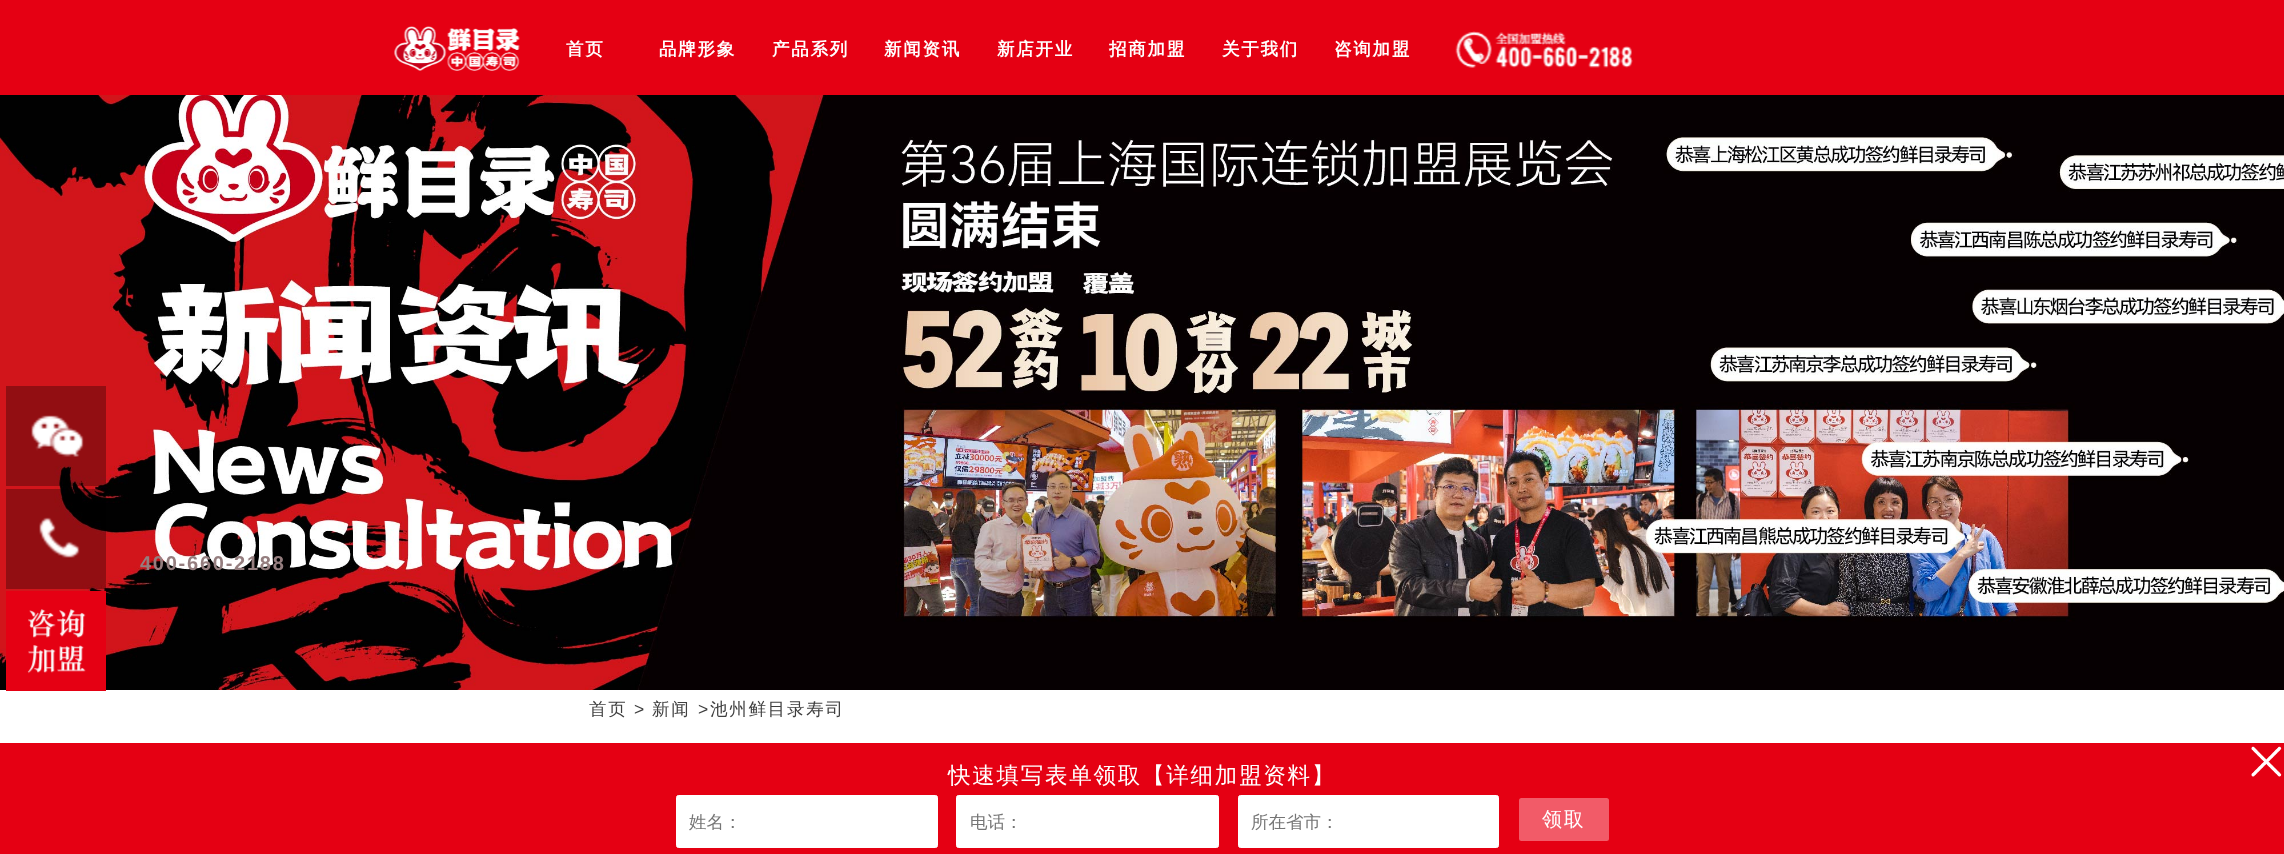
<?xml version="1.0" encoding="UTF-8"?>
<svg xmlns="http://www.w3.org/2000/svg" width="2284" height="854">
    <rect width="100%" height="100%" fill="#FFFFFF"/>
    <rect x="0" y="0" width="2284" height="95" fill="#E50013"/>
    <image x="394" y="26" width="126" height="45" href="img_01.png"/>
    <text x="566" y="55" font-family="WenQuanYi Zen Hei" font-size="17.5" font-weight="700" letter-spacing="1.75" fill="#FFFFFF">首页</text>
    <text x="659" y="55" font-family="WenQuanYi Zen Hei" font-size="17.5" font-weight="700" letter-spacing="1.75" fill="#FFFFFF">品牌形象</text>
    <text x="772" y="55" font-family="WenQuanYi Zen Hei" font-size="17.5" font-weight="700" letter-spacing="1.75" fill="#FFFFFF">产品系列</text>
    <text x="884" y="55" font-family="WenQuanYi Zen Hei" font-size="17.5" font-weight="700" letter-spacing="1.75" fill="#FFFFFF">新闻资讯</text>
    <text x="997" y="55" font-family="WenQuanYi Zen Hei" font-size="17.5" font-weight="700" letter-spacing="1.75" fill="#FFFFFF">新店开业</text>
    <text x="1109" y="55" font-family="WenQuanYi Zen Hei" font-size="17.5" font-weight="700" letter-spacing="1.75" fill="#FFFFFF">招商加盟</text>
    <text x="1222" y="55" font-family="WenQuanYi Zen Hei" font-size="17.5" font-weight="700" letter-spacing="1.75" fill="#FFFFFF">关于我们</text>
    <text x="1334" y="55" font-family="WenQuanYi Zen Hei" font-size="17.5" font-weight="700" letter-spacing="1.75" fill="#FFFFFF">咨询加盟</text>
    <image x="1455" y="31" width="178" height="37" href="img_02.png"/>
    <image x="0" y="95" width="2284" height="595" href="img_06.png"/>
    <rect x="6" y="386" width="100" height="100" fill="#000000" fill-opacity="0.3"/>
    <image x="31" y="415" width="53" height="42" href="img_03.png"/>
    <rect x="6" y="489" width="100" height="100" fill="#000000" fill-opacity="0.3"/>
    <image x="39" y="517" width="41" height="41" href="img_04.png"/>
    <text x="140" y="570" font-family="Liberation Sans" font-size="20" font-weight="700" letter-spacing="1.75" fill="#957E7F">400-660-2188</text>
    <rect x="6" y="591" width="100" height="100" fill="#E50013"/>
    <image x="27" y="609" width="59" height="65" href="img_05.png"/>
    <text x="589" y="715" font-family="WenQuanYi Zen Hei" font-size="17.5" font-weight="500" letter-spacing="1.75" fill="#3F3F3F">首页</text>
    <text x="634" y="715" font-family="Liberation Sans" font-size="17.5" letter-spacing="1.75" fill="#3F3F3F">&gt;</text>
    <text x="652" y="715" font-family="WenQuanYi Zen Hei" font-size="17.5" font-weight="500" letter-spacing="1.75" fill="#3F3F3F">新闻</text>
    <text x="698" y="715" font-family="Liberation Sans" font-size="17.5" letter-spacing="1.75" fill="#3F3F3F">&gt;</text>
    <text x="710" y="715" font-family="WenQuanYi Zen Hei" font-size="17.5" font-weight="500" letter-spacing="1.75" fill="#3F3F3F">池州鲜目录寿司</text>
    <rect x="0" y="743" width="2284" height="111" fill="#E50013"/>
    <text x="948" y="783" font-family="WenQuanYi Zen Hei" font-size="22.5" font-weight="500" letter-spacing="1.75" fill="#FFFFFF">快速填写表单领取【详细加盟资料】</text>
    <image x="2251" y="746" width="31" height="31" href="img_07.png"/>
    <rect x="676.5" y="795.5" width="261" height="52" rx="2" fill="#FFFFFF" stroke="#FFFFFF"/>
    <text x="689" y="828" font-family="WenQuanYi Zen Hei" font-size="17.5" font-weight="500" fill="#757575">姓名：</text>
    <rect x="956.5" y="795.5" width="262" height="52" rx="2" fill="#FFFFFF" stroke="#FFFFFF"/>
    <text x="970" y="828" font-family="WenQuanYi Zen Hei" font-size="17.5" font-weight="500" fill="#757575">电话：</text>
    <rect x="1238.5" y="795.5" width="260" height="52" rx="2" fill="#FFFFFF" stroke="#FFFFFF"/>
    <text x="1251" y="828" font-family="WenQuanYi Zen Hei" font-size="17.5" font-weight="500" fill="#757575">所在省市：</text>
    <rect x="1519" y="798" width="90" height="43" rx="2.5" fill="#F25B68"/>
    <text x="1542" y="826" font-family="WenQuanYi Zen Hei" font-size="20" font-weight="500" letter-spacing="1.75" fill="#FFFFFF">领取</text>
</svg>
